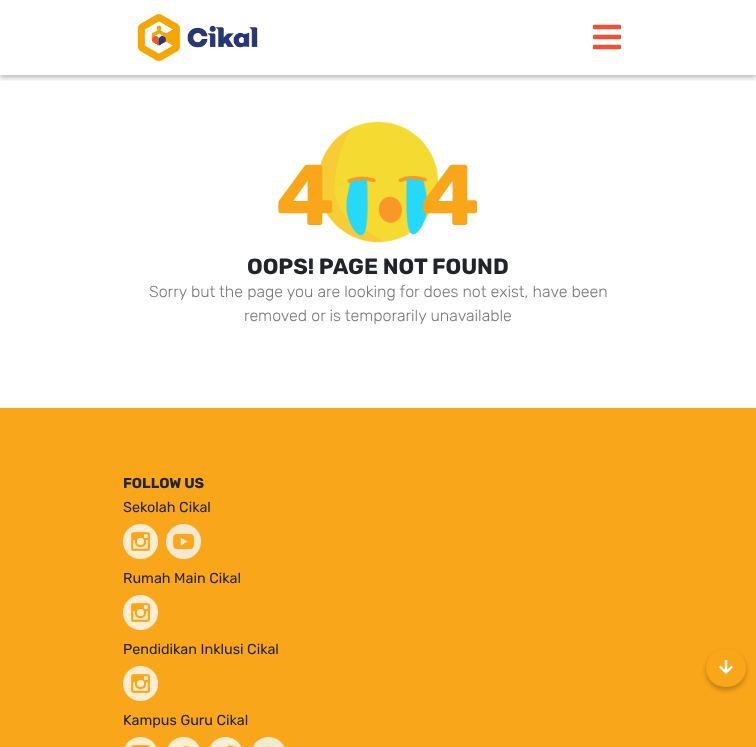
<?xml version="1.0" encoding="UTF-8"?>
<svg xmlns="http://www.w3.org/2000/svg" width="756" height="747">
    <defs>
        <clipPath id="clip1"><rect x="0" y="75" width="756" height="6"/></clipPath>
        <filter id="blur1" x="-50%" y="-200%" width="200%" height="500%"><feGaussianBlur stdDeviation="2.5"/></filter>
    </defs>
    <rect width="100%" height="100%" fill="#FFFFFF"/>
    <g clip-path="url(#clip1)">
        <rect x="0" y="3" width="756" height="75" fill="#000000" fill-opacity="0.25" filter="url(#blur1)"/>
    </g>
    <image x="137" y="13" width="121" height="49" href="img_01.png"/>
    <image x="593" y="24" width="28" height="26" href="img_02.png"/>
    <image x="317" y="121" width="122" height="122" href="img_03.png"/>
    <text x="276" y="225" font-family="Rubik" font-size="86" font-weight="700" fill="#FAA61A">4</text>
    <text x="421" y="225" font-family="Rubik" font-size="86" font-weight="700" fill="#FAA61A">4</text>
    <text x="247" y="274" font-family="Rubik" font-size="22" font-weight="700" fill="#212529">OOPS! PAGE NOT FOUND</text>
    <text x="149" y="297" font-family="Rubik" font-size="16" font-weight="300" fill="#787878">Sorry but the page you are looking for does not exist, have been</text>
    <text x="244" y="321" font-family="Rubik" font-size="16" font-weight="300" fill="#787878">removed or is temporarily unavailable</text>
    <rect x="0" y="408" width="756" height="339" fill="#FAA61A"/>
    <text x="123" y="488" font-family="Rubik" font-size="14.4" font-weight="700" fill="#212529">FOLLOW US</text>
    <text x="123" y="512" font-family="Rubik" font-size="14.4" fill="#212529">Sekolah Cikal</text>
    <image x="123" y="524" width="35" height="35" href="img_04.png"/>
    <image x="166" y="524" width="35" height="35" href="img_05.png"/>
    <text x="123" y="583" font-family="Rubik" font-size="14.4" fill="#212529">Rumah Main Cikal</text>
    <image x="123" y="595" width="35" height="35" href="img_06.png"/>
    <text x="123" y="654" font-family="Rubik" font-size="14.4" fill="#212529">Pendidikan Inklusi Cikal</text>
    <image x="123" y="666" width="35" height="35" href="img_06.png"/>
    <text x="123" y="725" font-family="Rubik" font-size="14.4" fill="#212529">Kampus Guru Cikal</text>
    <image x="124" y="737" width="33" height="10" href="img_07.png"/>
    <image x="167" y="737" width="33" height="10" href="img_08.png"/>
    <image x="209" y="737" width="33" height="10" href="img_09.png"/>
    <image x="252" y="737" width="33" height="10" href="img_10.png"/>
    <rect x="706" y="652" width="40" height="38" rx="19" fill="#000000" fill-opacity="0.25" filter="url(#blur1)"/>
    <rect x="706" y="649" width="40" height="38" rx="19" fill="#FAA61A"/>
    <image x="719" y="660" width="14" height="14" href="img_11.png"/>
</svg>
